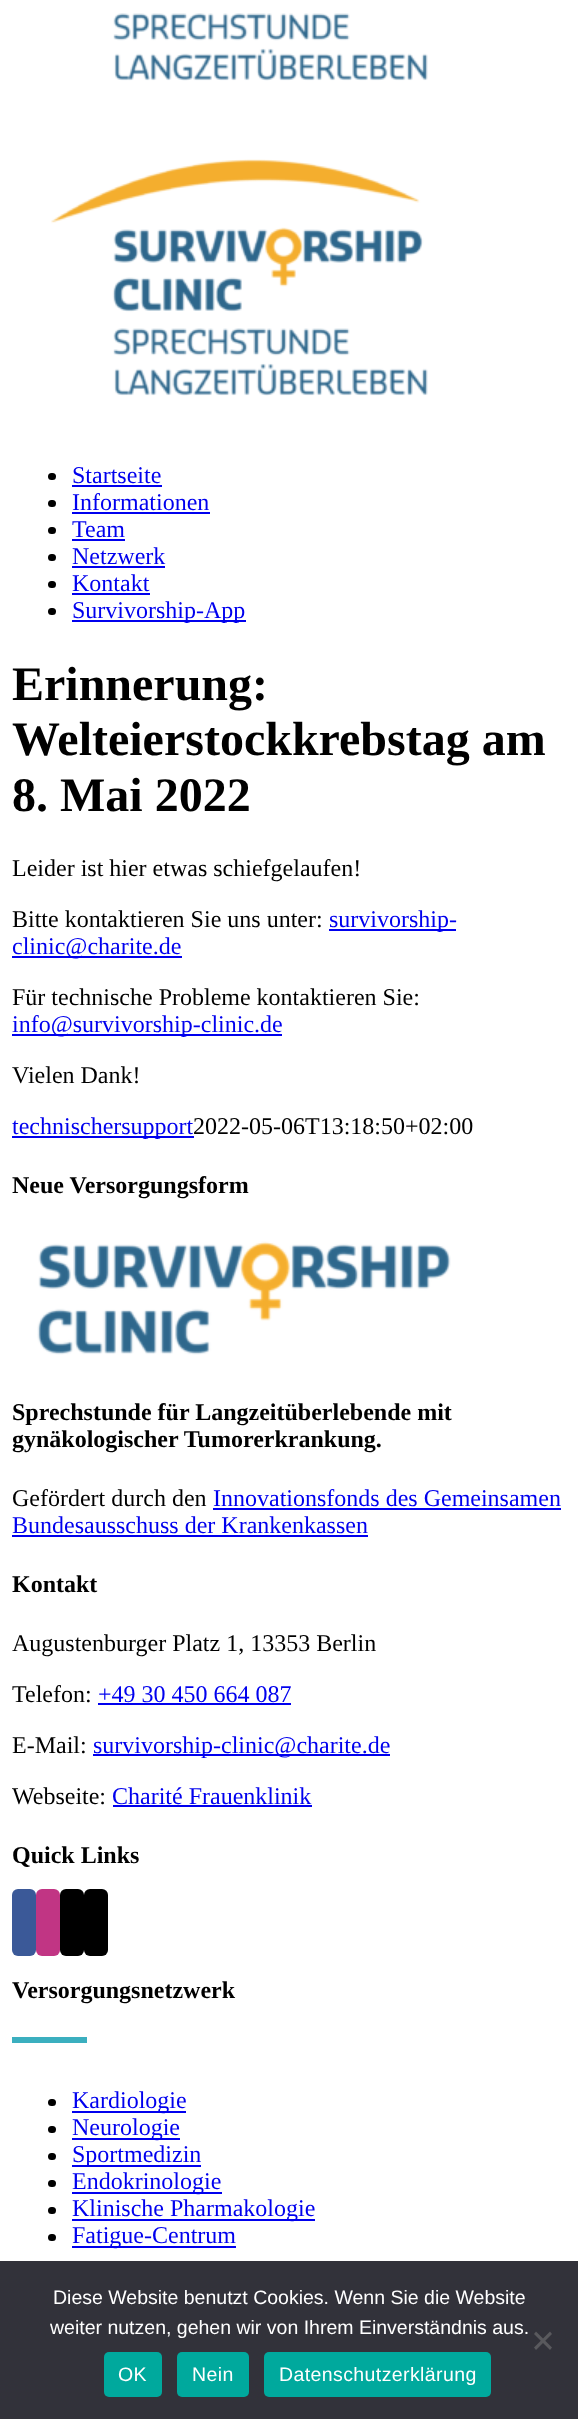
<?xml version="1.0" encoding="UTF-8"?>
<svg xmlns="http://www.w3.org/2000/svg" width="578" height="2419">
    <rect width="100%" height="100%" fill="#FFFFFF"/>
    <image x="113" y="13" width="315" height="68" href="img_01.png"/>
    <image x="51" y="159" width="377" height="237" href="img_02.png"/>
    <rect x="48" y="473" width="8" height="7" rx="3.5" fill="#000000"/>
    <text x="72" y="483" font-family="Liberation Serif" font-size="24" fill="#0000EE">Startseite</text>
    <rect x="72" y="485" width="90" height="2" fill="#0000EE"/>
    <rect x="48" y="500" width="8" height="7" rx="3.5" fill="#000000"/>
    <text x="72" y="510" font-family="Liberation Serif" font-size="24" fill="#0000EE">Informationen</text>
    <rect x="72" y="512" width="138" height="2" fill="#0000EE"/>
    <rect x="48" y="527" width="8" height="7" rx="3.5" fill="#000000"/>
    <text x="72" y="537" font-family="Liberation Serif" font-size="24" fill="#0000EE">Team</text>
    <rect x="72" y="539" width="53" height="2" fill="#0000EE"/>
    <rect x="48" y="554" width="8" height="7" rx="3.5" fill="#000000"/>
    <text x="72" y="564" font-family="Liberation Serif" font-size="24" fill="#0000EE">Netzwerk</text>
    <rect x="72" y="566" width="93" height="2" fill="#0000EE"/>
    <rect x="48" y="581" width="8" height="7" rx="3.5" fill="#000000"/>
    <text x="72" y="591" font-family="Liberation Serif" font-size="24" fill="#0000EE">Kontakt</text>
    <rect x="72" y="593" width="78" height="2" fill="#0000EE"/>
    <rect x="48" y="608" width="8" height="7" rx="3.5" fill="#000000"/>
    <rect x="72" y="620" width="174" height="2" fill="#0000EE"/>
    <text x="72" y="618" font-family="Liberation Serif" font-size="24" fill="#0000EE">Survivorship-App</text>
    <text font-family="Liberation Serif" font-size="48" font-weight="700" fill="#000000">
        <tspan x="12" y="700">Erinnerung:</tspan>
        <tspan x="12" y="755">Welteierstockkrebstag am</tspan>
        <tspan x="12" y="811">8. Mai 2022</tspan>
    </text>
    <text x="12" y="876" font-family="Liberation Serif" font-size="24" fill="#000000">Leider ist hier etwas schiefgelaufen!</text>
    <text x="12" y="927" font-family="Liberation Serif" font-size="24" fill="#000000">Bitte kontaktieren Sie uns unter:</text>
    <rect x="329" y="929" width="127" height="2" fill="#0000EE"/>
    <text x="329" y="927" font-family="Liberation Serif" font-size="24" fill="#0000EE">survivorship-</text>
    <rect x="12" y="956" width="170" height="2" fill="#0000EE"/>
    <text x="12" y="954" font-family="Liberation Serif" font-size="24" fill="#0000EE">clinic@charite.de</text>
    <text x="12" y="1005" font-family="Liberation Serif" font-size="24" fill="#000000">Für technische Probleme kontaktieren Sie:</text>
    <rect x="12" y="1034" width="270" height="2" fill="#0000EE"/>
    <text x="12" y="1032" font-family="Liberation Serif" font-size="24" fill="#0000EE">info@survivorship-clinic.de</text>
    <text x="12" y="1083" font-family="Liberation Serif" font-size="24" fill="#000000">Vielen Dank!</text>
    <rect x="12" y="1136" width="182" height="2" fill="#0000EE"/>
    <text x="12" y="1134" font-family="Liberation Serif" font-size="24" fill="#0000EE">technischersupport</text>
    <text x="193" y="1134" font-family="Liberation Serif" font-size="24" fill="#000000">2022-05-06T13:18:50+02:00</text>
    <text x="12" y="1193" font-family="Liberation Serif" font-size="24" font-weight="700" fill="#000000">Neue Versorgungsform</text>
    <image x="37" y="1241" width="414" height="114" href="img_03.png"/>
    <text font-family="Liberation Serif" font-size="24" font-weight="700" fill="#000000">
        <tspan x="12" y="1420">Sprechstunde für Langzeitüberlebende mit</tspan>
        <tspan x="12" y="1447">gynäkologischer Tumorerkrankung.</tspan>
    </text>
    <text x="12" y="1506" font-family="Liberation Serif" font-size="24" fill="#000000">Gefördert durch den</text>
    <text x="213" y="1506" font-family="Liberation Serif" font-size="24" fill="#0000EE">Innovationsfonds des Gemeinsamen</text>
    <rect x="213" y="1508" width="348" height="2" fill="#0000EE"/>
    <text x="12" y="1533" font-family="Liberation Serif" font-size="24" fill="#0000EE">Bundesausschuss der Krankenkassen</text>
    <rect x="12" y="1535" width="356" height="2" fill="#0000EE"/>
    <text x="12" y="1592" font-family="Liberation Serif" font-size="24" font-weight="700" fill="#000000">Kontakt</text>
    <text x="12" y="1651" font-family="Liberation Serif" font-size="24" fill="#000000">Augustenburger Platz 1, 13353 Berlin</text>
    <text x="12" y="1702" font-family="Liberation Serif" font-size="24" fill="#000000">Telefon:</text>
    <text x="98" y="1702" font-family="Liberation Serif" font-size="24" fill="#0000EE">+49 30 450 664 087</text>
    <rect x="98" y="1703" width="193" height="2" fill="#0000EE"/>
    <text x="12" y="1753" font-family="Liberation Serif" font-size="24" fill="#000000">E-Mail:</text>
    <rect x="93" y="1754" width="297" height="2" fill="#0000EE"/>
    <text x="93" y="1753" font-family="Liberation Serif" font-size="24" fill="#0000EE">survivorship-clinic@charite.de</text>
    <text x="12" y="1804" font-family="Liberation Serif" font-size="24" fill="#000000">Webseite:</text>
    <text x="112" y="1804" font-family="Liberation Serif" font-size="24" fill="#0000EE">Charité Frauenklinik</text>
    <rect x="113" y="1805" width="199" height="2" fill="#0000EE"/>
    <text x="12" y="1863" font-family="Liberation Serif" font-size="24" font-weight="700" fill="#000000">Quick Links</text>
    <rect x="12" y="1889" width="24" height="67" rx="6" fill="#3B5998"/>
    <rect x="36" y="1889" width="24" height="67" rx="6" fill="#C13584"/>
    <rect x="60" y="1889" width="24" height="67" rx="6" fill="#000000"/>
    <rect x="84" y="1889" width="24" height="67" rx="6" fill="#000000"/>
    <text x="12" y="1998" font-family="Liberation Serif" font-size="24" font-weight="700" fill="#000000">Versorgungsnetzwerk</text>
    <rect x="12" y="2037" width="75" height="6" fill="#3BAFBF"/>
    <rect x="48" y="2099" width="8" height="7" rx="3.5" fill="#000000"/>
    <rect x="72" y="2111" width="114" height="2" fill="#0000EE"/>
    <text x="72" y="2108" font-family="Liberation Serif" font-size="24" fill="#0000EE">Kardiologie</text>
    <rect x="48" y="2126" width="8" height="7" rx="3.5" fill="#000000"/>
    <rect x="72" y="2138" width="108" height="2" fill="#0000EE"/>
    <text x="72" y="2135" font-family="Liberation Serif" font-size="24" fill="#0000EE">Neurologie</text>
    <rect x="48" y="2153" width="8" height="7" rx="3.5" fill="#000000"/>
    <rect x="72" y="2165" width="129" height="2" fill="#0000EE"/>
    <text x="72" y="2162" font-family="Liberation Serif" font-size="24" fill="#0000EE">Sportmedizin</text>
    <rect x="48" y="2180" width="8" height="7" rx="3.5" fill="#000000"/>
    <rect x="72" y="2192" width="150" height="2" fill="#0000EE"/>
    <text x="72" y="2189" font-family="Liberation Serif" font-size="24" fill="#0000EE">Endokrinologie</text>
    <rect x="48" y="2207" width="8" height="7" rx="3.5" fill="#000000"/>
    <rect x="72" y="2219" width="243" height="2" fill="#0000EE"/>
    <text x="72" y="2216" font-family="Liberation Serif" font-size="24" fill="#0000EE">Klinische Pharmakologie</text>
    <rect x="48" y="2234" width="8" height="7" rx="3.5" fill="#000000"/>
    <rect x="72" y="2246" width="164" height="2" fill="#0000EE"/>
    <text x="72" y="2243" font-family="Liberation Serif" font-size="24" fill="#0000EE">Fatigue-Centrum</text>
    <rect x="0" y="2261" width="578" height="158" fill="#32323A"/>
    <text x="53" y="2304" font-family="Liberation Sans" font-size="19.5" fill="#FFFFFF">Diese Website benutzt Cookies. Wenn Sie die Website</text>
    <text x="50" y="2334" font-family="Liberation Sans" font-size="19.5" fill="#FFFFFF">weiter nutzen, gehen wir von Ihrem Einverständnis aus.</text>
    <path d="M 550 2331.5 L 552 2334 L 536 2350 L 534 2347.5 Z" fill="#59595D"/>
    <path d="M 534 2334 L 536 2331.5 L 552 2347.5 L 550 2350 Z" fill="#59595D"/>
    <rect x="104" y="2352" width="58" height="45" rx="5" fill="#00A99D"/>
    <text x="118" y="2381" font-family="Liberation Sans" font-size="19.5" letter-spacing="0.4" fill="#FFFFFF">OK</text>
    <rect x="177" y="2352" width="72" height="45" rx="5" fill="#00A99D"/>
    <text x="192" y="2381" font-family="Liberation Sans" font-size="19.5" letter-spacing="0.4" fill="#FFFFFF">Nein</text>
    <rect x="264" y="2352" width="227" height="45" rx="5" fill="#00A99D"/>
    <text x="279" y="2381" font-family="Liberation Sans" font-size="19.5" letter-spacing="0.4" fill="#FFFFFF">Datenschutzerklärung</text>
</svg>
